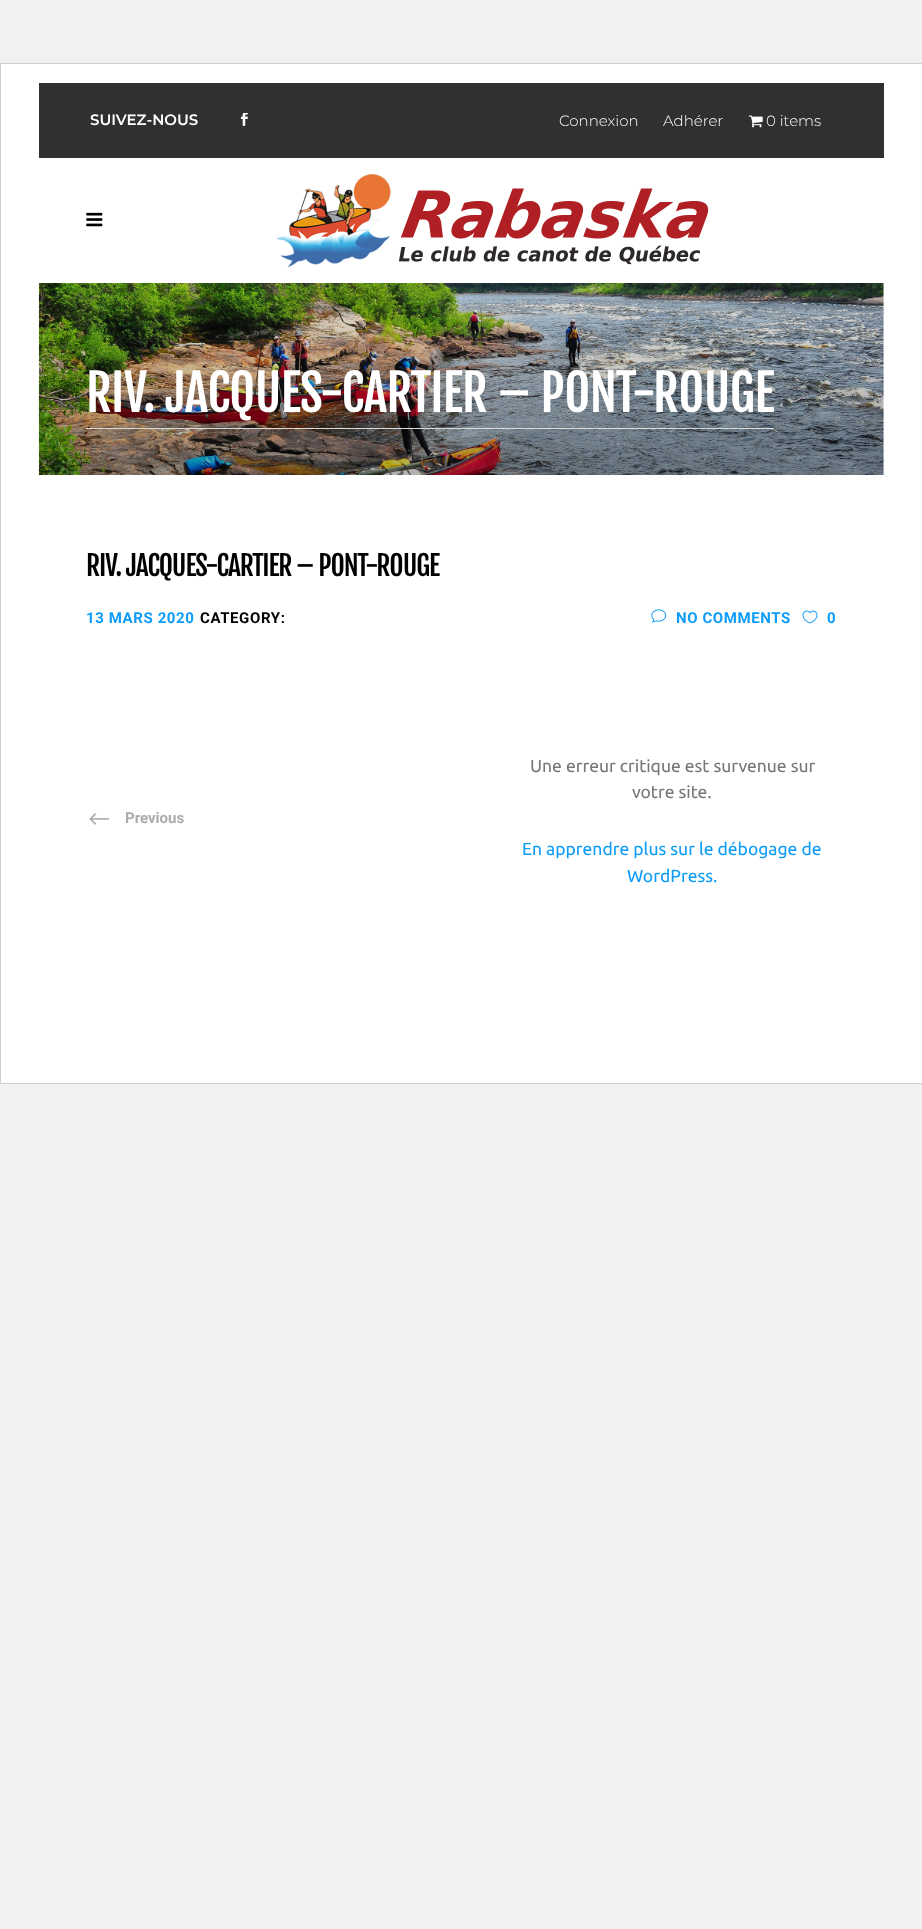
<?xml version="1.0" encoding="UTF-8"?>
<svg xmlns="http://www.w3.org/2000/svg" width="922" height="1929">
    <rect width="100%" height="100%" fill="#F1F1F1"/>
    <rect x="0.5" y="63.5" width="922" height="1020" fill="#FFFFFF" stroke="#CCD0D4"/>
    <rect x="39" y="83" width="845" height="75" fill="#303030"/>
    <text x="90" y="125" font-family="Montserrat" font-size="15" font-weight="600" fill="#FFFFFF">SUIVEZ-NOUS</text>
    <image x="240" y="113" width="8" height="13" href="img_01.png"/>
    <text x="559" y="126" font-family="Montserrat" font-size="15" font-weight="300" fill="#FFFFFF">Connexion</text>
    <text x="663" y="126" font-family="Montserrat" font-size="15" font-weight="300" fill="#FFFFFF">Adhérer</text>
    <image x="748" y="115" width="15" height="13" href="img_02.png"/>
    <text x="766" y="126" font-family="Montserrat" font-size="15" font-weight="300" fill="#FFFFFF">0 items</text>
    <image x="38" y="282" width="846" height="193" href="img_05.png"/>
    <rect x="39" y="282" width="845" height="1" fill="#FFFFFF"/>
    <image x="86" y="212" width="17" height="15" href="img_03.png"/>
    <image x="277" y="174" width="432" height="93" href="img_04.png"/>
    <rect x="86" y="428" width="688" height="1" fill="#DADADA"/>
    <text x="86" y="412" font-family="Fjalla One" font-size="50" letter-spacing="-0.6" fill="#FFFFFF">RIV. JACQUES-CARTIER – PONT-ROUGE</text>
    <text x="86" y="576" font-family="Fjalla One" font-size="27.5" letter-spacing="-1.1" fill="#000000">RIV. JACQUES-CARTIER – PONT-ROUGE</text>
    <text x="86" y="623" font-family="Roboto" font-size="15" font-weight="700" letter-spacing="0.6" fill="#0D9CFA">13 MARS 2020</text>
    <text x="200" y="623" font-family="Roboto" font-size="15" font-weight="700" letter-spacing="0.6" fill="#000000">CATEGORY:</text>
    <image x="651" y="609" width="16" height="14" href="img_06.png"/>
    <text x="676" y="623" font-family="Roboto" font-size="15" font-weight="700" letter-spacing="0.6" fill="#0D9CFA">NO COMMENTS</text>
    <image x="802" y="610" width="16" height="14" href="img_07.png"/>
    <text x="827" y="623" font-family="Roboto" font-size="15" font-weight="700" letter-spacing="0.6" fill="#0D9CFA">0</text>
    <image x="89" y="813" width="21" height="12" href="img_08.png"/>
    <text x="125" y="823" font-family="Roboto" font-size="15" font-weight="700" fill="#ABABAB">Previous</text>
    <text x="530" y="772" font-family="Ubuntu" font-size="17.5" fill="#777777">Une erreur critique est survenue sur</text>
    <text x="632" y="798" font-family="Ubuntu" font-size="17.5" fill="#777777">votre site.</text>
    <text x="522" y="855" font-family="Ubuntu" font-size="17.5" fill="#0D9CFA">En apprendre plus sur le débogage de</text>
    <text x="627" y="882" font-family="Ubuntu" font-size="17.5" fill="#0D9CFA">WordPress.</text>
</svg>
